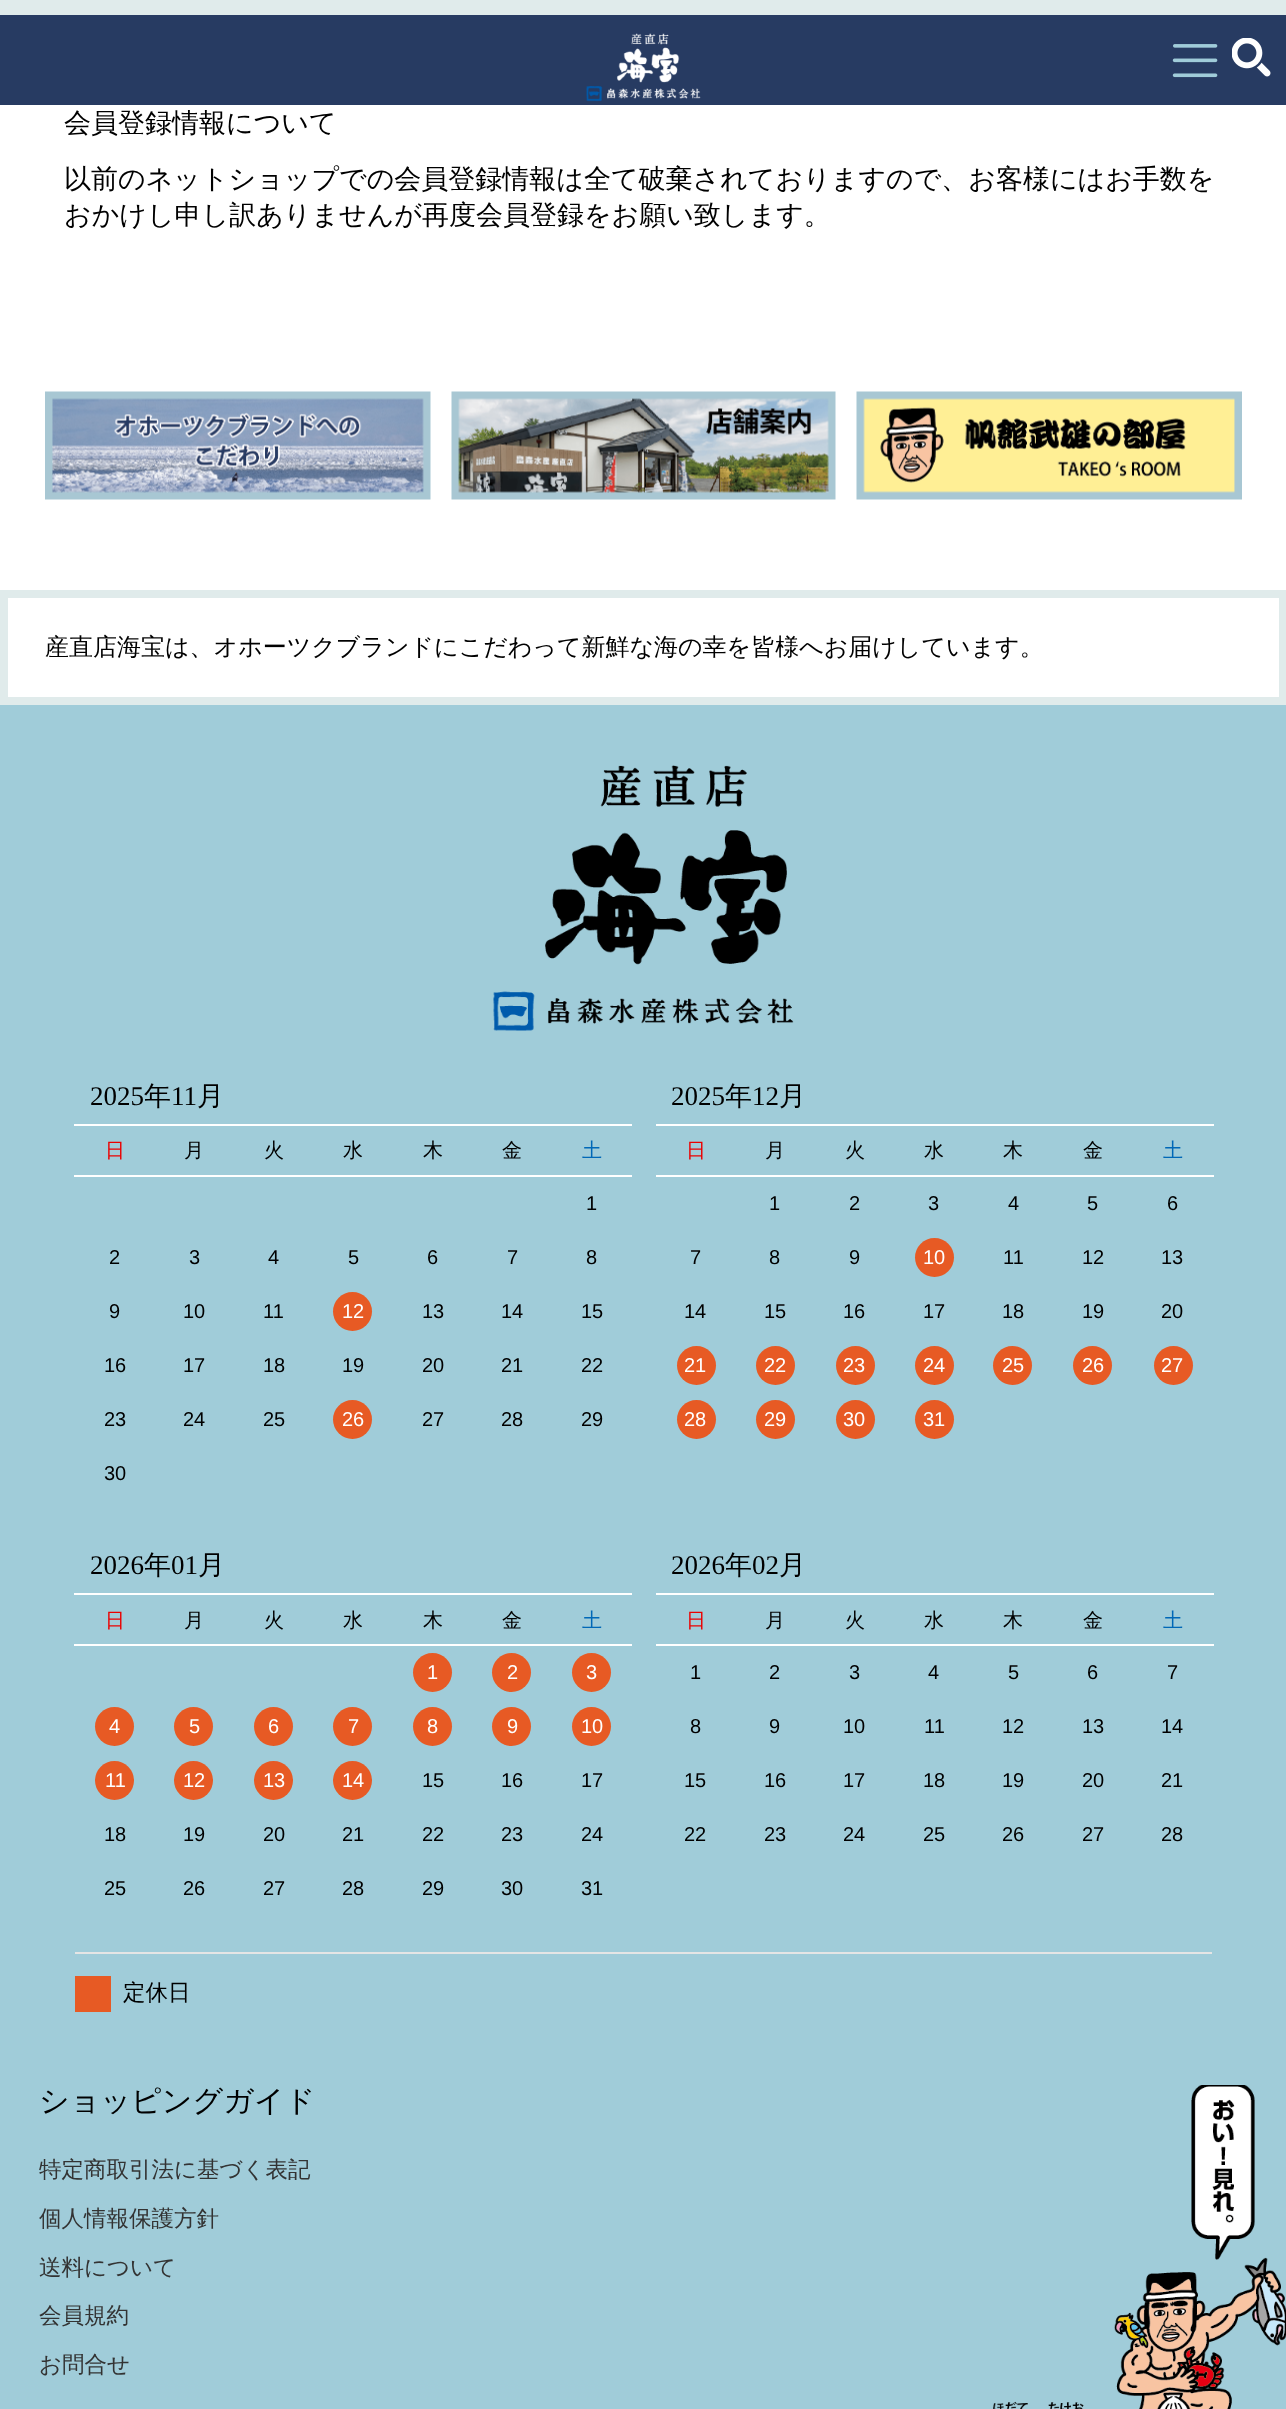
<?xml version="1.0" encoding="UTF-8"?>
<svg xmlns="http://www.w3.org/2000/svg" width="1286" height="2409">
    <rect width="100%" height="100%" fill="#FFFFFF"/>
    <rect x="0" y="15" width="1286" height="90" fill="#273B62"/>
    <rect x="0" y="0" width="1286" height="15" fill="#E0EBEB"/>
    <image x="586" y="33" width="115" height="69" href="img_01.png"/>
    <image x="1172" y="44" width="46" height="34" href="img_02.png"/>
    <image x="1232" y="38" width="39" height="39" href="img_03.png"/>
    <text x="64" y="132" font-family="WenQuanYi Zen Hei" font-size="27" font-weight="500" fill="#000000">会員登録情報について</text>
    <text font-family="WenQuanYi Zen Hei" font-size="27" font-weight="500" fill="#000000">
        <tspan x="64" y="188">以前のネットショップでの会員登録情報は全て破棄されておりますので、お客様にはお手数を</tspan>
        <tspan x="64" y="224">おかけし申し訳ありませんが再度会員登録をお願い致します。</tspan>
    </text>
    <image x="45" y="391" width="386" height="109" href="img_04.png"/>
    <image x="451" y="391" width="385" height="109" href="img_05.png"/>
    <image x="856" y="391" width="386" height="109" href="img_06.png"/>
    <rect x="4" y="594" width="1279" height="107" fill="none" stroke="#E0EBEB" stroke-width="8"/>
    <text x="45" y="655" font-family="WenQuanYi Zen Hei" font-size="24" font-weight="500" fill="#000000">産直店海宝は、オホーツクブランドにこだわって新鮮な海の幸を皆様へお届けしています。</text>
    <rect x="0" y="705" width="1286" height="1704" fill="#A0CCD9"/>
    <image x="493" y="765" width="301" height="266" href="img_07.png"/>
    <text x="90" y="1105" font-family="Liberation Serif" font-size="27" fill="#000000">2025</text>
    <text x="144" y="1105" font-family="WenQuanYi Zen Hei" font-size="27" font-weight="500" fill="#000000">年</text>
    <text x="171" y="1105" font-family="Liberation Serif" font-size="27" fill="#000000">11</text>
    <text x="197" y="1105" font-family="WenQuanYi Zen Hei" font-size="27" font-weight="500" fill="#000000">月</text>
    <rect x="74" y="1124" width="558" height="2" fill="#FFFFFF"/>
    <rect x="74" y="1175" width="558" height="2" fill="#FFFFFF"/>
    <text x="105" y="1157" font-family="WenQuanYi Zen Hei" font-size="20" font-weight="500" fill="#EC0000">日</text>
    <text x="184" y="1157" font-family="WenQuanYi Zen Hei" font-size="20" font-weight="500" fill="#000000">月</text>
    <text x="264" y="1157" font-family="WenQuanYi Zen Hei" font-size="20" font-weight="500" fill="#000000">火</text>
    <text x="343" y="1157" font-family="WenQuanYi Zen Hei" font-size="20" font-weight="500" fill="#000000">水</text>
    <text x="423" y="1157" font-family="WenQuanYi Zen Hei" font-size="20" font-weight="500" fill="#000000">木</text>
    <text x="502" y="1157" font-family="WenQuanYi Zen Hei" font-size="20" font-weight="500" fill="#000000">金</text>
    <text x="582" y="1157" font-family="WenQuanYi Zen Hei" font-size="20" font-weight="500" fill="#0068B7">土</text>
    <text x="586" y="1210" font-family="Liberation Sans" font-size="20" fill="#000000">1</text>
    <text x="109" y="1264" font-family="Liberation Sans" font-size="20" fill="#000000">2</text>
    <text x="189" y="1264" font-family="Liberation Sans" font-size="20" fill="#000000">3</text>
    <text x="268" y="1264" font-family="Liberation Sans" font-size="20" fill="#000000">4</text>
    <text x="348" y="1264" font-family="Liberation Sans" font-size="20" fill="#000000">5</text>
    <text x="427" y="1264" font-family="Liberation Sans" font-size="20" fill="#000000">6</text>
    <text x="507" y="1264" font-family="Liberation Sans" font-size="20" fill="#000000">7</text>
    <text x="586" y="1264" font-family="Liberation Sans" font-size="20" fill="#000000">8</text>
    <text x="109" y="1318" font-family="Liberation Sans" font-size="20" fill="#000000">9</text>
    <text x="183" y="1318" font-family="Liberation Sans" font-size="20" fill="#000000">10</text>
    <text x="263" y="1318" font-family="Liberation Sans" font-size="20" fill="#000000">11</text>
    <circle cx="352.5" cy="1311.5" r="19.5" fill="#E75A24"/>
    <text x="342" y="1318" font-family="Liberation Sans" font-size="20" fill="#FFFFFF">12</text>
    <text x="422" y="1318" font-family="Liberation Sans" font-size="20" fill="#000000">13</text>
    <text x="501" y="1318" font-family="Liberation Sans" font-size="20" fill="#000000">14</text>
    <text x="581" y="1318" font-family="Liberation Sans" font-size="20" fill="#000000">15</text>
    <text x="104" y="1372" font-family="Liberation Sans" font-size="20" fill="#000000">16</text>
    <text x="183" y="1372" font-family="Liberation Sans" font-size="20" fill="#000000">17</text>
    <text x="263" y="1372" font-family="Liberation Sans" font-size="20" fill="#000000">18</text>
    <text x="342" y="1372" font-family="Liberation Sans" font-size="20" fill="#000000">19</text>
    <text x="422" y="1372" font-family="Liberation Sans" font-size="20" fill="#000000">20</text>
    <text x="501" y="1372" font-family="Liberation Sans" font-size="20" fill="#000000">21</text>
    <text x="581" y="1372" font-family="Liberation Sans" font-size="20" fill="#000000">22</text>
    <text x="104" y="1426" font-family="Liberation Sans" font-size="20" fill="#000000">23</text>
    <text x="183" y="1426" font-family="Liberation Sans" font-size="20" fill="#000000">24</text>
    <text x="263" y="1426" font-family="Liberation Sans" font-size="20" fill="#000000">25</text>
    <circle cx="352.5" cy="1419.5" r="19.5" fill="#E75A24"/>
    <text x="342" y="1426" font-family="Liberation Sans" font-size="20" fill="#FFFFFF">26</text>
    <text x="422" y="1426" font-family="Liberation Sans" font-size="20" fill="#000000">27</text>
    <text x="501" y="1426" font-family="Liberation Sans" font-size="20" fill="#000000">28</text>
    <text x="581" y="1426" font-family="Liberation Sans" font-size="20" fill="#000000">29</text>
    <text x="104" y="1480" font-family="Liberation Sans" font-size="20" fill="#000000">30</text>
    <text x="671" y="1105" font-family="Liberation Serif" font-size="27" fill="#000000">2025</text>
    <text x="725" y="1105" font-family="WenQuanYi Zen Hei" font-size="27" font-weight="500" fill="#000000">年</text>
    <text x="752" y="1105" font-family="Liberation Serif" font-size="27" fill="#000000">12</text>
    <text x="779" y="1105" font-family="WenQuanYi Zen Hei" font-size="27" font-weight="500" fill="#000000">月</text>
    <rect x="656" y="1124" width="558" height="2" fill="#FFFFFF"/>
    <rect x="656" y="1175" width="558" height="2" fill="#FFFFFF"/>
    <text x="686" y="1157" font-family="WenQuanYi Zen Hei" font-size="20" font-weight="500" fill="#EC0000">日</text>
    <text x="765" y="1157" font-family="WenQuanYi Zen Hei" font-size="20" font-weight="500" fill="#000000">月</text>
    <text x="845" y="1157" font-family="WenQuanYi Zen Hei" font-size="20" font-weight="500" fill="#000000">火</text>
    <text x="924" y="1157" font-family="WenQuanYi Zen Hei" font-size="20" font-weight="500" fill="#000000">水</text>
    <text x="1003" y="1157" font-family="WenQuanYi Zen Hei" font-size="20" font-weight="500" fill="#000000">木</text>
    <text x="1083" y="1157" font-family="WenQuanYi Zen Hei" font-size="20" font-weight="500" fill="#000000">金</text>
    <text x="1163" y="1157" font-family="WenQuanYi Zen Hei" font-size="20" font-weight="500" fill="#0068B7">土</text>
    <text x="769" y="1210" font-family="Liberation Sans" font-size="20" fill="#000000">1</text>
    <text x="849" y="1210" font-family="Liberation Sans" font-size="20" fill="#000000">2</text>
    <text x="928" y="1210" font-family="Liberation Sans" font-size="20" fill="#000000">3</text>
    <text x="1008" y="1210" font-family="Liberation Sans" font-size="20" fill="#000000">4</text>
    <text x="1087" y="1210" font-family="Liberation Sans" font-size="20" fill="#000000">5</text>
    <text x="1167" y="1210" font-family="Liberation Sans" font-size="20" fill="#000000">6</text>
    <text x="690" y="1264" font-family="Liberation Sans" font-size="20" fill="#000000">7</text>
    <text x="769" y="1264" font-family="Liberation Sans" font-size="20" fill="#000000">8</text>
    <text x="849" y="1264" font-family="Liberation Sans" font-size="20" fill="#000000">9</text>
    <circle cx="934.5" cy="1257.5" r="19.5" fill="#E75A24"/>
    <text x="923" y="1264" font-family="Liberation Sans" font-size="20" fill="#FFFFFF">10</text>
    <text x="1003" y="1264" font-family="Liberation Sans" font-size="20" fill="#000000">11</text>
    <text x="1082" y="1264" font-family="Liberation Sans" font-size="20" fill="#000000">12</text>
    <text x="1161" y="1264" font-family="Liberation Sans" font-size="20" fill="#000000">13</text>
    <text x="684" y="1318" font-family="Liberation Sans" font-size="20" fill="#000000">14</text>
    <text x="764" y="1318" font-family="Liberation Sans" font-size="20" fill="#000000">15</text>
    <text x="843" y="1318" font-family="Liberation Sans" font-size="20" fill="#000000">16</text>
    <text x="923" y="1318" font-family="Liberation Sans" font-size="20" fill="#000000">17</text>
    <text x="1002" y="1318" font-family="Liberation Sans" font-size="20" fill="#000000">18</text>
    <text x="1082" y="1318" font-family="Liberation Sans" font-size="20" fill="#000000">19</text>
    <text x="1161" y="1318" font-family="Liberation Sans" font-size="20" fill="#000000">20</text>
    <circle cx="696.5" cy="1365.5" r="19.5" fill="#E75A24"/>
    <text x="684" y="1372" font-family="Liberation Sans" font-size="20" fill="#FFFFFF">21</text>
    <circle cx="775.5" cy="1365.5" r="19.5" fill="#E75A24"/>
    <text x="764" y="1372" font-family="Liberation Sans" font-size="20" fill="#FFFFFF">22</text>
    <circle cx="855.5" cy="1365.5" r="19.5" fill="#E75A24"/>
    <text x="843" y="1372" font-family="Liberation Sans" font-size="20" fill="#FFFFFF">23</text>
    <circle cx="934.5" cy="1365.5" r="19.5" fill="#E75A24"/>
    <text x="923" y="1372" font-family="Liberation Sans" font-size="20" fill="#FFFFFF">24</text>
    <circle cx="1012.5" cy="1365.5" r="19.5" fill="#E75A24"/>
    <text x="1002" y="1372" font-family="Liberation Sans" font-size="20" fill="#FFFFFF">25</text>
    <circle cx="1092.5" cy="1365.5" r="19.5" fill="#E75A24"/>
    <text x="1082" y="1372" font-family="Liberation Sans" font-size="20" fill="#FFFFFF">26</text>
    <circle cx="1173.5" cy="1365.5" r="19.5" fill="#E75A24"/>
    <text x="1161" y="1372" font-family="Liberation Sans" font-size="20" fill="#FFFFFF">27</text>
    <circle cx="696.5" cy="1419.5" r="19.5" fill="#E75A24"/>
    <text x="684" y="1426" font-family="Liberation Sans" font-size="20" fill="#FFFFFF">28</text>
    <circle cx="775.5" cy="1419.5" r="19.5" fill="#E75A24"/>
    <text x="764" y="1426" font-family="Liberation Sans" font-size="20" fill="#FFFFFF">29</text>
    <circle cx="855.5" cy="1419.5" r="19.5" fill="#E75A24"/>
    <text x="843" y="1426" font-family="Liberation Sans" font-size="20" fill="#FFFFFF">30</text>
    <circle cx="934.5" cy="1419.5" r="19.5" fill="#E75A24"/>
    <text x="923" y="1426" font-family="Liberation Sans" font-size="20" fill="#FFFFFF">31</text>
    <text x="90" y="1574" font-family="Liberation Serif" font-size="27" fill="#000000">2026</text>
    <text x="144" y="1574" font-family="WenQuanYi Zen Hei" font-size="27" font-weight="500" fill="#000000">年</text>
    <text x="171" y="1574" font-family="Liberation Serif" font-size="27" fill="#000000">01</text>
    <text x="198" y="1574" font-family="WenQuanYi Zen Hei" font-size="27" font-weight="500" fill="#000000">月</text>
    <rect x="74" y="1593" width="558" height="2" fill="#FFFFFF"/>
    <rect x="74" y="1644" width="558" height="2" fill="#FFFFFF"/>
    <text x="105" y="1627" font-family="WenQuanYi Zen Hei" font-size="20" font-weight="500" fill="#EC0000">日</text>
    <text x="184" y="1627" font-family="WenQuanYi Zen Hei" font-size="20" font-weight="500" fill="#000000">月</text>
    <text x="264" y="1627" font-family="WenQuanYi Zen Hei" font-size="20" font-weight="500" fill="#000000">火</text>
    <text x="343" y="1627" font-family="WenQuanYi Zen Hei" font-size="20" font-weight="500" fill="#000000">水</text>
    <text x="423" y="1627" font-family="WenQuanYi Zen Hei" font-size="20" font-weight="500" fill="#000000">木</text>
    <text x="502" y="1627" font-family="WenQuanYi Zen Hei" font-size="20" font-weight="500" fill="#000000">金</text>
    <text x="582" y="1627" font-family="WenQuanYi Zen Hei" font-size="20" font-weight="500" fill="#0068B7">土</text>
    <circle cx="432.5" cy="1672.5" r="19.5" fill="#E75A24"/>
    <text x="427" y="1679" font-family="Liberation Sans" font-size="20" fill="#FFFFFF">1</text>
    <circle cx="511.5" cy="1672.5" r="19.5" fill="#E75A24"/>
    <text x="507" y="1679" font-family="Liberation Sans" font-size="20" fill="#FFFFFF">2</text>
    <circle cx="591.5" cy="1672.5" r="19.5" fill="#E75A24"/>
    <text x="586" y="1679" font-family="Liberation Sans" font-size="20" fill="#FFFFFF">3</text>
    <circle cx="114.5" cy="1726.5" r="19.5" fill="#E75A24"/>
    <text x="109" y="1733" font-family="Liberation Sans" font-size="20" fill="#FFFFFF">4</text>
    <circle cx="193.5" cy="1726.5" r="19.5" fill="#E75A24"/>
    <text x="189" y="1733" font-family="Liberation Sans" font-size="20" fill="#FFFFFF">5</text>
    <circle cx="273.5" cy="1726.5" r="19.5" fill="#E75A24"/>
    <text x="268" y="1733" font-family="Liberation Sans" font-size="20" fill="#FFFFFF">6</text>
    <circle cx="352.5" cy="1726.5" r="19.5" fill="#E75A24"/>
    <text x="348" y="1733" font-family="Liberation Sans" font-size="20" fill="#FFFFFF">7</text>
    <circle cx="432.5" cy="1726.5" r="19.5" fill="#E75A24"/>
    <text x="427" y="1733" font-family="Liberation Sans" font-size="20" fill="#FFFFFF">8</text>
    <circle cx="511.5" cy="1726.5" r="19.5" fill="#E75A24"/>
    <text x="507" y="1733" font-family="Liberation Sans" font-size="20" fill="#FFFFFF">9</text>
    <circle cx="591.5" cy="1726.5" r="19.5" fill="#E75A24"/>
    <text x="581" y="1733" font-family="Liberation Sans" font-size="20" fill="#FFFFFF">10</text>
    <circle cx="114.5" cy="1780.5" r="19.5" fill="#E75A24"/>
    <text x="105" y="1787" font-family="Liberation Sans" font-size="20" fill="#FFFFFF">11</text>
    <circle cx="193.5" cy="1780.5" r="19.5" fill="#E75A24"/>
    <text x="183" y="1787" font-family="Liberation Sans" font-size="20" fill="#FFFFFF">12</text>
    <circle cx="273.5" cy="1780.5" r="19.5" fill="#E75A24"/>
    <text x="263" y="1787" font-family="Liberation Sans" font-size="20" fill="#FFFFFF">13</text>
    <circle cx="352.5" cy="1780.5" r="19.5" fill="#E75A24"/>
    <text x="342" y="1787" font-family="Liberation Sans" font-size="20" fill="#FFFFFF">14</text>
    <text x="422" y="1787" font-family="Liberation Sans" font-size="20" fill="#000000">15</text>
    <text x="501" y="1787" font-family="Liberation Sans" font-size="20" fill="#000000">16</text>
    <text x="581" y="1787" font-family="Liberation Sans" font-size="20" fill="#000000">17</text>
    <text x="104" y="1841" font-family="Liberation Sans" font-size="20" fill="#000000">18</text>
    <text x="183" y="1841" font-family="Liberation Sans" font-size="20" fill="#000000">19</text>
    <text x="263" y="1841" font-family="Liberation Sans" font-size="20" fill="#000000">20</text>
    <text x="342" y="1841" font-family="Liberation Sans" font-size="20" fill="#000000">21</text>
    <text x="422" y="1841" font-family="Liberation Sans" font-size="20" fill="#000000">22</text>
    <text x="501" y="1841" font-family="Liberation Sans" font-size="20" fill="#000000">23</text>
    <text x="581" y="1841" font-family="Liberation Sans" font-size="20" fill="#000000">24</text>
    <text x="104" y="1895" font-family="Liberation Sans" font-size="20" fill="#000000">25</text>
    <text x="183" y="1895" font-family="Liberation Sans" font-size="20" fill="#000000">26</text>
    <text x="263" y="1895" font-family="Liberation Sans" font-size="20" fill="#000000">27</text>
    <text x="342" y="1895" font-family="Liberation Sans" font-size="20" fill="#000000">28</text>
    <text x="422" y="1895" font-family="Liberation Sans" font-size="20" fill="#000000">29</text>
    <text x="501" y="1895" font-family="Liberation Sans" font-size="20" fill="#000000">30</text>
    <text x="581" y="1895" font-family="Liberation Sans" font-size="20" fill="#000000">31</text>
    <text x="671" y="1574" font-family="Liberation Serif" font-size="27" fill="#000000">2026</text>
    <text x="725" y="1574" font-family="WenQuanYi Zen Hei" font-size="27" font-weight="500" fill="#000000">年</text>
    <text x="752" y="1574" font-family="Liberation Serif" font-size="27" fill="#000000">02</text>
    <text x="779" y="1574" font-family="WenQuanYi Zen Hei" font-size="27" font-weight="500" fill="#000000">月</text>
    <rect x="656" y="1593" width="558" height="2" fill="#FFFFFF"/>
    <rect x="656" y="1644" width="558" height="2" fill="#FFFFFF"/>
    <text x="686" y="1627" font-family="WenQuanYi Zen Hei" font-size="20" font-weight="500" fill="#EC0000">日</text>
    <text x="765" y="1627" font-family="WenQuanYi Zen Hei" font-size="20" font-weight="500" fill="#000000">月</text>
    <text x="845" y="1627" font-family="WenQuanYi Zen Hei" font-size="20" font-weight="500" fill="#000000">火</text>
    <text x="924" y="1627" font-family="WenQuanYi Zen Hei" font-size="20" font-weight="500" fill="#000000">水</text>
    <text x="1003" y="1627" font-family="WenQuanYi Zen Hei" font-size="20" font-weight="500" fill="#000000">木</text>
    <text x="1083" y="1627" font-family="WenQuanYi Zen Hei" font-size="20" font-weight="500" fill="#000000">金</text>
    <text x="1163" y="1627" font-family="WenQuanYi Zen Hei" font-size="20" font-weight="500" fill="#0068B7">土</text>
    <text x="690" y="1679" font-family="Liberation Sans" font-size="20" fill="#000000">1</text>
    <text x="769" y="1679" font-family="Liberation Sans" font-size="20" fill="#000000">2</text>
    <text x="849" y="1679" font-family="Liberation Sans" font-size="20" fill="#000000">3</text>
    <text x="928" y="1679" font-family="Liberation Sans" font-size="20" fill="#000000">4</text>
    <text x="1008" y="1679" font-family="Liberation Sans" font-size="20" fill="#000000">5</text>
    <text x="1087" y="1679" font-family="Liberation Sans" font-size="20" fill="#000000">6</text>
    <text x="1167" y="1679" font-family="Liberation Sans" font-size="20" fill="#000000">7</text>
    <text x="690" y="1733" font-family="Liberation Sans" font-size="20" fill="#000000">8</text>
    <text x="769" y="1733" font-family="Liberation Sans" font-size="20" fill="#000000">9</text>
    <text x="843" y="1733" font-family="Liberation Sans" font-size="20" fill="#000000">10</text>
    <text x="924" y="1733" font-family="Liberation Sans" font-size="20" fill="#000000">11</text>
    <text x="1002" y="1733" font-family="Liberation Sans" font-size="20" fill="#000000">12</text>
    <text x="1082" y="1733" font-family="Liberation Sans" font-size="20" fill="#000000">13</text>
    <text x="1161" y="1733" font-family="Liberation Sans" font-size="20" fill="#000000">14</text>
    <text x="684" y="1787" font-family="Liberation Sans" font-size="20" fill="#000000">15</text>
    <text x="764" y="1787" font-family="Liberation Sans" font-size="20" fill="#000000">16</text>
    <text x="843" y="1787" font-family="Liberation Sans" font-size="20" fill="#000000">17</text>
    <text x="923" y="1787" font-family="Liberation Sans" font-size="20" fill="#000000">18</text>
    <text x="1002" y="1787" font-family="Liberation Sans" font-size="20" fill="#000000">19</text>
    <text x="1082" y="1787" font-family="Liberation Sans" font-size="20" fill="#000000">20</text>
    <text x="1161" y="1787" font-family="Liberation Sans" font-size="20" fill="#000000">21</text>
    <text x="684" y="1841" font-family="Liberation Sans" font-size="20" fill="#000000">22</text>
    <text x="764" y="1841" font-family="Liberation Sans" font-size="20" fill="#000000">23</text>
    <text x="843" y="1841" font-family="Liberation Sans" font-size="20" fill="#000000">24</text>
    <text x="923" y="1841" font-family="Liberation Sans" font-size="20" fill="#000000">25</text>
    <text x="1002" y="1841" font-family="Liberation Sans" font-size="20" fill="#000000">26</text>
    <text x="1082" y="1841" font-family="Liberation Sans" font-size="20" fill="#000000">27</text>
    <text x="1161" y="1841" font-family="Liberation Sans" font-size="20" fill="#000000">28</text>
    <rect x="75" y="1952" width="1137" height="2" fill="#E5E5E5"/>
    <rect x="75" y="1976" width="36" height="36" fill="#E75A24"/>
    <text x="123" y="2000" font-family="WenQuanYi Zen Hei" font-size="22.5" font-weight="500" fill="#000000">定休日</text>
    <text x="39" y="2111" font-family="WenQuanYi Zen Hei" font-size="30" font-weight="500" fill="#000000">ショッピングガイド</text>
    <text x="39" y="2177" font-family="WenQuanYi Zen Hei" font-size="22.5" font-weight="500" fill="#333333">特定商取引法に基づく表記</text>
    <text x="39" y="2226" font-family="WenQuanYi Zen Hei" font-size="22.5" font-weight="500" fill="#333333">個人情報保護方針</text>
    <text x="39" y="2275" font-family="WenQuanYi Zen Hei" font-size="22.5" font-weight="500" fill="#333333">送料について</text>
    <text x="39" y="2323" font-family="WenQuanYi Zen Hei" font-size="22.5" font-weight="500" fill="#333333">会員規約</text>
    <text x="39" y="2372" font-family="WenQuanYi Zen Hei" font-size="22.5" font-weight="500" fill="#333333">お問合せ</text>
    <image x="993" y="2085" width="293" height="324" href="img_08.png"/>
</svg>
